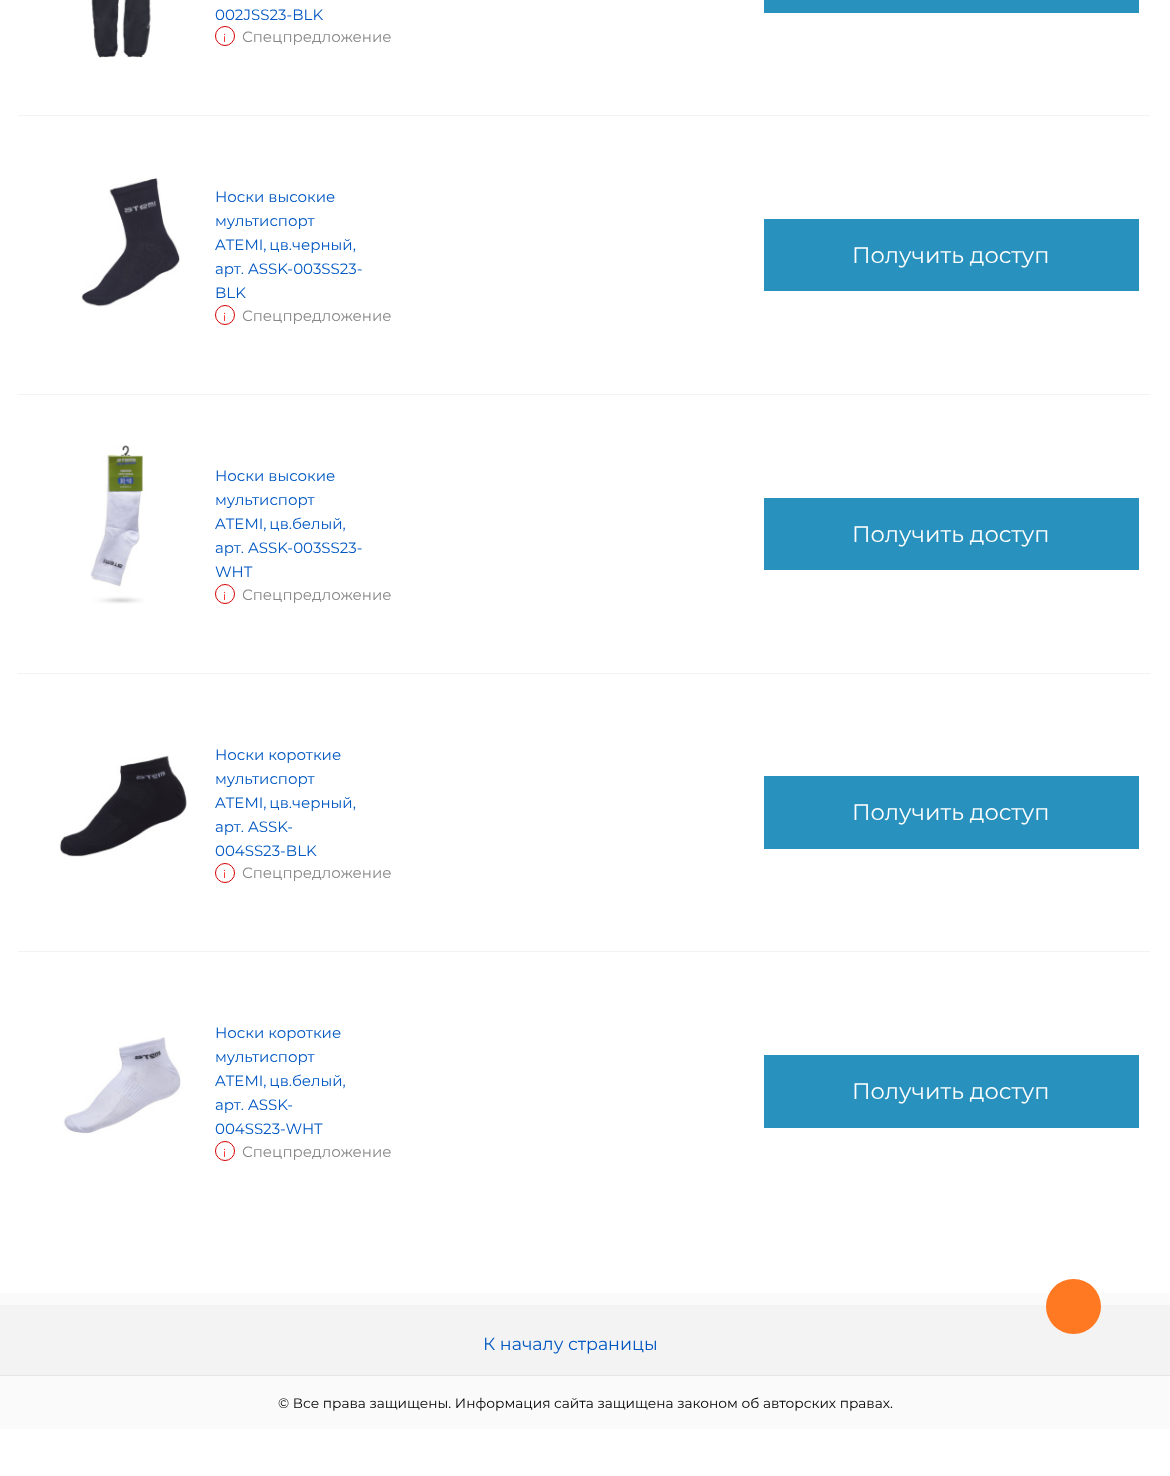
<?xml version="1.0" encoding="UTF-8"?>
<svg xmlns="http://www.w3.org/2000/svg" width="1170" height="1476">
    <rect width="100%" height="100%" fill="#FFFFFF"/>
    <image x="91" y="0" width="62" height="58" href="img_01.png"/>
    <rect x="764" y="0" width="375" height="13" fill="#2891BD"/>
    <text x="215" y="20" font-family="Montserrat" font-size="15" fill="#0057C2">002JSS23-BLK</text>
    <circle cx="225" cy="36" r="9.5" fill="none" stroke="#D50101"/>
    <text x="223" y="42" font-family="Montserrat" font-size="11" fill="#FF0303">i</text>
    <text x="242" y="42" font-family="Montserrat" font-size="15" fill="#888888">Спецпредложение</text>
    <rect x="18" y="115" width="1132" height="1" fill="#F3F3F3"/>
    <image x="80" y="178" width="101" height="129" href="img_02.png"/>
    <text font-family="Montserrat" font-size="15" fill="#0057C2">
        <tspan x="215" y="202">Носки высокие</tspan>
        <tspan x="215" y="226">мультиспорт</tspan>
        <tspan x="215" y="250" word-spacing="-1">ATEMI, цв.черный,</tspan>
        <tspan x="215" y="274">арт. ASSK-003SS23-</tspan>
        <tspan x="215" y="298">BLK</tspan>
    </text>
    <circle cx="225" cy="315" r="9.5" fill="none" stroke="#D50101"/>
    <text x="223" y="321" font-family="Montserrat" font-size="11" fill="#FF0303">i</text>
    <text x="242" y="321" font-family="Montserrat" font-size="15" fill="#888888">Спецпредложение</text>
    <rect x="764" y="219" width="375" height="72" fill="#2891BD"/>
    <text x="852" y="263" font-family="Montserrat" font-size="22.5" fill="#FFFFFF">Получить доступ</text>
    <rect x="18" y="394" width="1132" height="1" fill="#F3F3F3"/>
    <image x="90" y="445" width="55" height="159" href="img_03.png"/>
    <text font-family="Montserrat" font-size="15" fill="#0057C2">
        <tspan x="215" y="481">Носки высокие</tspan>
        <tspan x="215" y="505">мультиспорт</tspan>
        <tspan x="215" y="529" word-spacing="-1">ATEMI, цв.белый,</tspan>
        <tspan x="215" y="553">арт. ASSK-003SS23-</tspan>
        <tspan x="215" y="577">WHT</tspan>
    </text>
    <circle cx="225" cy="594" r="9.5" fill="none" stroke="#D50101"/>
    <text x="223" y="600" font-family="Montserrat" font-size="11" fill="#FF0303">i</text>
    <text x="242" y="600" font-family="Montserrat" font-size="15" fill="#888888">Спецпредложение</text>
    <rect x="764" y="498" width="375" height="72" fill="#2891BD"/>
    <text x="852" y="542" font-family="Montserrat" font-size="22.5" fill="#FFFFFF">Получить доступ</text>
    <rect x="18" y="673" width="1132" height="1" fill="#F3F3F3"/>
    <image x="59" y="755" width="128" height="102" href="img_04.png"/>
    <text font-family="Montserrat" font-size="15" fill="#0057C2">
        <tspan x="215" y="760">Носки короткие</tspan>
        <tspan x="215" y="784">мультиспорт</tspan>
        <tspan x="215" y="808" word-spacing="-1">ATEMI, цв.черный,</tspan>
        <tspan x="215" y="832">арт. ASSK-</tspan>
        <tspan x="215" y="856">004SS23-BLK</tspan>
    </text>
    <circle cx="225" cy="873" r="9.5" fill="none" stroke="#D50101"/>
    <text x="223" y="878" font-family="Montserrat" font-size="11" fill="#FF0303">i</text>
    <text x="242" y="878" font-family="Montserrat" font-size="15" fill="#888888">Спецпредложение</text>
    <rect x="764" y="776" width="375" height="73" fill="#2891BD"/>
    <text x="852" y="820" font-family="Montserrat" font-size="22.5" fill="#FFFFFF">Получить доступ</text>
    <rect x="18" y="951" width="1132" height="1" fill="#F3F3F3"/>
    <image x="63" y="1037" width="118" height="97" href="img_05.png"/>
    <text font-family="Montserrat" font-size="15" fill="#0057C2">
        <tspan x="215" y="1038">Носки короткие</tspan>
        <tspan x="215" y="1062">мультиспорт</tspan>
        <tspan x="215" y="1086" word-spacing="-1">ATEMI, цв.белый,</tspan>
        <tspan x="215" y="1110">арт. ASSK-</tspan>
        <tspan x="215" y="1134">004SS23-WHT</tspan>
    </text>
    <circle cx="225" cy="1151" r="9.5" fill="none" stroke="#D50101"/>
    <text x="223" y="1157" font-family="Montserrat" font-size="11" fill="#FF0303">i</text>
    <text x="242" y="1157" font-family="Montserrat" font-size="15" fill="#888888">Спецпредложение</text>
    <rect x="764" y="1055" width="375" height="73" fill="#2891BD"/>
    <text x="852" y="1099" font-family="Montserrat" font-size="22.5" fill="#FFFFFF">Получить доступ</text>
    <rect x="0" y="1293" width="1170" height="136" fill="#FAFAFA"/>
    <rect x="0" y="1305" width="1170" height="70" fill="#F3F3F3"/>
    <circle cx="1073.5" cy="1306.5" r="27.5" fill="#FF7822"/>
    <text x="483" y="1350" font-family="Montserrat" font-size="17.5" fill="#0057C2">К началу страницы</text>
    <rect x="0" y="1375" width="1170" height="1" fill="#E5E5E5"/>
    <text x="278" y="1408" font-family="Montserrat" font-size="13.75" fill="#000000">© Все права защищены. Информация сайта защищена законом об авторских правах.</text>
</svg>
